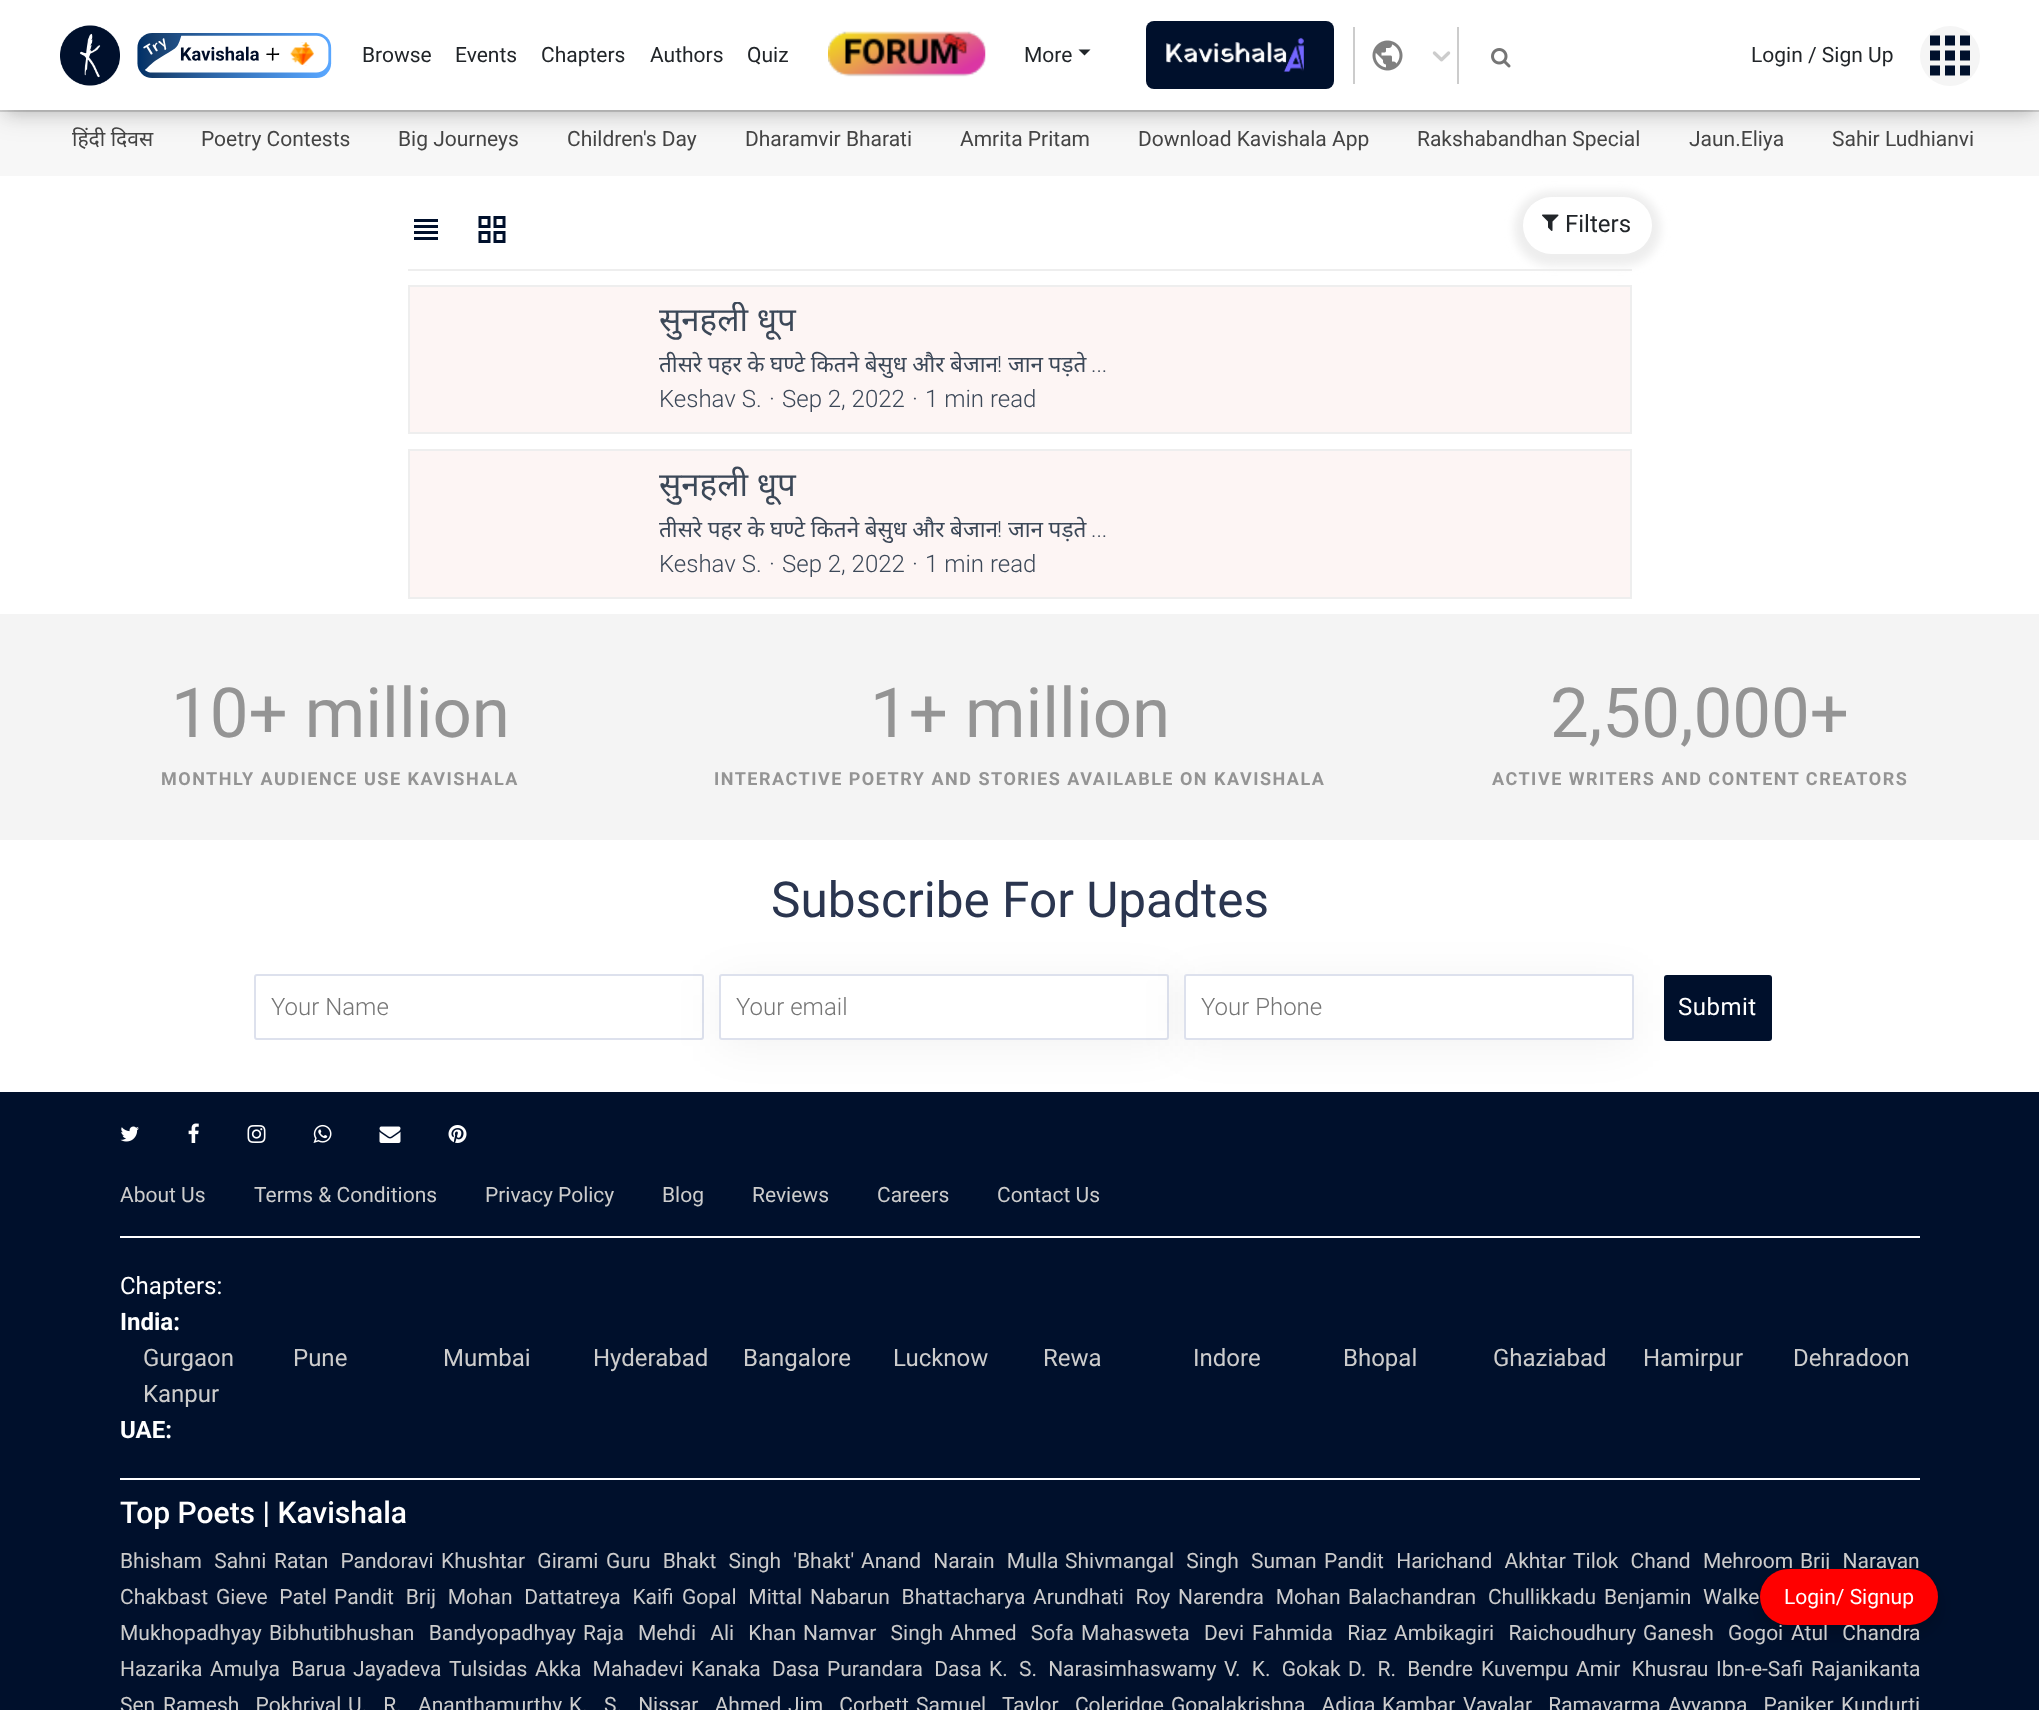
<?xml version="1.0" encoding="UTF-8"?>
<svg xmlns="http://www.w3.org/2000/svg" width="2039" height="1710">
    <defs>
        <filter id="blur1" x="-50%" y="-200%" width="200%" height="500%"><feGaussianBlur stdDeviation="7.5"/></filter>
        <filter id="blur2" x="-50%" y="-200%" width="200%" height="500%"><feGaussianBlur stdDeviation="13.5"/></filter>
        <filter id="blur3" x="-50%" y="-200%" width="200%" height="500%"><feGaussianBlur stdDeviation="4.5"/></filter>
        <clipPath id="clip1"><rect x="659" y="302" width="448" height="39"/></clipPath>
        <clipPath id="clip2"><rect x="659" y="348" width="448" height="33"/></clipPath>
        <clipPath id="clip3"><rect x="659" y="465" width="448" height="41"/></clipPath>
        <clipPath id="clip4"><rect x="659" y="513" width="448" height="33"/></clipPath>
        <filter id="blur4" x="-50%" y="-200%" width="200%" height="500%"><feGaussianBlur stdDeviation="9"/></filter>
        <filter id="blur5" x="-50%" y="-200%" width="200%" height="500%"><feGaussianBlur stdDeviation="22.5"/></filter>
    </defs>
    <rect width="100%" height="100%" fill="#FFFFFF"/>
    <rect x="0" y="110" width="2039" height="2" fill="#D3D3D3"/>
    <rect x="0" y="112" width="2039" height="64" fill="#F7F7F7"/>
    <rect x="8" y="18" width="2025" height="95" fill="#000000" fill-opacity="0.15" filter="url(#blur1)"/>
    <rect x="0" y="6" width="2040" height="110" fill="#000000" fill-opacity="0.12" filter="url(#blur2)"/>
    <rect x="0" y="0" width="2039" height="110" fill="#FFFFFF"/>
    <image x="60" y="25" width="60" height="61" href="img_01.png"/>
    <image x="137" y="33" width="195" height="45" href="img_02.png"/>
    <text x="362" y="62" font-family="Roboto" font-size="21" fill="#212529">Browse</text>
    <text x="455" y="62" font-family="Roboto" font-size="21" fill="#212529">Events</text>
    <text x="541" y="62" font-family="Roboto" font-size="21" fill="#212529">Chapters</text>
    <text x="650" y="62" font-family="Roboto" font-size="21" fill="#212529">Authors</text>
    <text x="747" y="62" font-family="Roboto" font-size="21" fill="#212529">Quiz</text>
    <image x="828" y="31" width="158" height="46" href="img_03.png"/>
    <text x="1024" y="62" font-family="Roboto" font-size="21" fill="#212529">More</text>
    <path d="M 1078.5 49.5 H 1090.5 L 1084.5 55.5 Z" fill="#212529"/>
    <rect x="1146" y="21" width="188" height="68" rx="8" fill="#00102C"/>
    <image x="1166" y="37" width="138" height="35" href="img_04.png"/>
    <rect x="1457" y="27" width="2" height="57" fill="#CCCCCC"/>
    <rect x="1353" y="27" width="2" height="57" fill="#CCCCCC"/>
    <image x="1372" y="40" width="31" height="31" href="img_05.png"/>
    <image x="1432" y="51" width="19" height="11" href="img_06.png"/>
    <image x="1491" y="48" width="20" height="20" href="img_07.png"/>
    <text x="1751" y="62" font-family="Roboto" font-size="21" fill="#212529">Login / Sign Up</text>
    <circle cx="1950" cy="56" r="30" fill="#F5F5F5"/>
    <image x="1930" y="35" width="40" height="41" href="img_08.png"/>
    <text x="72" y="146" font-family="Noto Sans" font-size="21" fill="#444444">हिंदी दिवस</text>
    <text x="201" y="146" font-family="Roboto" font-size="21" fill="#444444">Poetry Contests</text>
    <text x="398" y="146" font-family="Roboto" font-size="21" fill="#444444">Big Journeys</text>
    <text x="567" y="146" font-family="Roboto" font-size="21" fill="#444444">Children's Day</text>
    <text x="745" y="146" font-family="Roboto" font-size="21" fill="#444444">Dharamvir Bharati</text>
    <text x="960" y="146" font-family="Roboto" font-size="21" fill="#444444">Amrita Pritam</text>
    <text x="1138" y="146" font-family="Roboto" font-size="21" fill="#444444">Download Kavishala App</text>
    <text x="1417" y="146" font-family="Roboto" font-size="21" fill="#444444">Rakshabandhan Special</text>
    <text x="1689" y="146" font-family="Roboto" font-size="21" fill="#444444">Jaun.Eliya</text>
    <text x="1832" y="146" font-family="Roboto" font-size="21" fill="#444444">Sahir Ludhianvi</text>
    <image x="414" y="219" width="24" height="21" href="img_09.png"/>
    <image x="478" y="216" width="28" height="27" href="img_10.png"/>
    <rect x="408" y="269" width="1224" height="2" fill="#EEEEEE"/>
    <rect x="1514" y="191" width="147" height="75" rx="37.5" fill="#EEEEEE" filter="url(#blur3)"/>
    <rect x="1523" y="197" width="129" height="57" rx="28.5" fill="#FFFFFF"/>
    <image x="1542" y="214" width="17" height="17" href="img_11.png"/>
    <text x="1565" y="232" font-family="Roboto" font-size="24" fill="#212529">Filters</text>
    <rect x="409" y="286" width="1222" height="147" fill="#FDF5F4" stroke="#EEEEEE" stroke-width="2"/>
    <g clip-path="url(#clip1)">
        <text x="659" y="331" font-family="Noto Sans" font-size="33" fill="#3C4858">सुनहली धूप</text>
    </g>
    <g clip-path="url(#clip2)">
        <text x="659" y="372" word-spacing="-0.25" font-family="Noto Sans" font-size="22.5" fill="#3C4858">तीसरे पहर के घण्टे कितने बेसुध और बेजान</text>
    </g>
    <text x="997" y="372" font-family="Roboto" font-size="22.5" font-weight="300" fill="#3C4858">!</text>
    <text x="1008" y="372" word-spacing="-0.25" font-family="Noto Sans" font-size="22.5" fill="#3C4858">जान पड़ते</text>
    <text x="1091" y="372" font-family="Roboto" font-size="22.5" font-weight="300" fill="#3C4858">...</text>
    <text x="659" y="407" font-family="Roboto" font-size="24" font-weight="300" fill="#3C4858">Keshav S.</text>
    <text x="769" y="407" font-family="Roboto" font-size="24" font-weight="300" fill="#3C4858">·</text>
    <text x="782" y="407" font-family="Roboto" font-size="24" font-weight="300" fill="#3C4858">Sep 2, 2022</text>
    <text x="912" y="407" font-family="Roboto" font-size="24" font-weight="300" fill="#3C4858">·</text>
    <text x="925" y="407" font-family="Roboto" font-size="24" font-weight="300" fill="#3C4858">1 min read</text>
    <rect x="409" y="450" width="1222" height="148" fill="#FDF5F4" stroke="#EEEEEE" stroke-width="2"/>
    <g clip-path="url(#clip3)">
        <text x="659" y="496" font-family="Noto Sans" font-size="33" fill="#3C4858">सुनहली धूप</text>
    </g>
    <g clip-path="url(#clip4)">
        <text x="659" y="537" word-spacing="-0.25" font-family="Noto Sans" font-size="22.5" fill="#3C4858">तीसरे पहर के घण्टे कितने बेसुध और बेजान</text>
    </g>
    <text x="997" y="537" font-family="Roboto" font-size="22.5" font-weight="300" fill="#3C4858">!</text>
    <text x="1008" y="537" word-spacing="-0.25" font-family="Noto Sans" font-size="22.5" fill="#3C4858">जान पड़ते</text>
    <text x="1091" y="537" font-family="Roboto" font-size="22.5" font-weight="300" fill="#3C4858">...</text>
    <text x="659" y="572" font-family="Roboto" font-size="24" font-weight="300" fill="#3C4858">Keshav S.</text>
    <text x="769" y="572" font-family="Roboto" font-size="24" font-weight="300" fill="#3C4858">·</text>
    <text x="782" y="572" font-family="Roboto" font-size="24" font-weight="300" fill="#3C4858">Sep 2, 2022</text>
    <text x="912" y="572" font-family="Roboto" font-size="24" font-weight="300" fill="#3C4858">·</text>
    <text x="925" y="572" font-family="Roboto" font-size="24" font-weight="300" fill="#3C4858">1 min read</text>
    <rect x="0" y="1092" width="2039" height="618" fill="#00102C"/>
    <rect x="1760" y="1578" width="178" height="56" rx="28" fill="#000000" fill-opacity="0.2" filter="url(#blur4)"/>
    <text x="1800" y="1568" word-spacing="7" font-family="Roboto" font-size="21" fill="#CCCCCC">Brij Narayan</text>
    <text x="1643" y="1640" word-spacing="9" font-family="Roboto" font-size="21" fill="#CCCCCC">Ganesh Gogoi</text>
    <text x="1791" y="1640" word-spacing="9" font-family="Roboto" font-size="21" fill="#CCCCCC">Atul Chandra</text>
    <rect x="1760" y="1569" width="178" height="56" rx="28" fill="#FF0000"/>
    <text x="1784" y="1604" font-family="Roboto" font-size="21" fill="#FFFFFF">Login/ Signup</text>
    <rect x="0" y="614" width="2039" height="226" fill="#F4F4F4"/>
    <text x="171" y="737" font-family="Roboto" font-size="69" fill="#949494">10+ million</text>
    <text x="161" y="785" font-family="Roboto" font-size="18" font-weight="700" letter-spacing="1.5" fill="#949494">MONTHLY AUDIENCE USE KAVISHALA</text>
    <text x="870" y="737" font-family="Roboto" font-size="69" fill="#949494">1+ million</text>
    <text x="714" y="785" font-family="Roboto" font-size="18" font-weight="700" letter-spacing="1.5" fill="#949494">INTERACTIVE POETRY AND STORIES AVAILABLE ON KAVISHALA</text>
    <text x="1550" y="737" font-family="Roboto" font-size="69" fill="#949494">2,50,000+</text>
    <text x="1492" y="785" font-family="Roboto" font-size="18" font-weight="700" letter-spacing="1.5" fill="#949494">ACTIVE WRITERS AND CONTENT CREATORS</text>
    <text x="771" y="917" font-family="Roboto" font-size="49.5" fill="#2A354F">Subscribe For Upadtes</text>
    <rect x="255" y="975" width="448" height="64" rx="2" fill="none" stroke="#DDE1ED" stroke-width="2"/>
    <text x="271" y="1015" font-family="Roboto" font-size="24" font-weight="300" fill="#757575">Your Name</text>
    <rect x="719" y="980" width="450" height="66" rx="3" fill="#000000" fill-opacity="0.05" filter="url(#blur5)"/>
    <rect x="720" y="975" width="448" height="64" rx="2" fill="#FFFFFF" stroke="#DDE1ED" stroke-width="2"/>
    <text x="736" y="1015" font-family="Roboto" font-size="24" font-weight="300" fill="#757575">Your email</text>
    <rect x="1184" y="980" width="450" height="66" rx="3" fill="#000000" fill-opacity="0.05" filter="url(#blur5)"/>
    <rect x="1185" y="975" width="448" height="64" rx="2" fill="#FFFFFF" stroke="#DDE1ED" stroke-width="2"/>
    <text x="1201" y="1015" font-family="Roboto" font-size="24" font-weight="300" fill="#757575">Your Phone</text>
    <rect x="1664" y="975" width="108" height="66" rx="3" fill="#00102C"/>
    <text x="1678" y="1015" font-family="Roboto" font-size="24" letter-spacing="0.5" fill="#FFFFFF">Submit</text>
    <image x="120" y="1126" width="19" height="16" href="img_12.png"/>
    <image x="188" y="1123" width="11" height="20" href="img_13.png"/>
    <image x="247" y="1125" width="19" height="18" href="img_14.png"/>
    <image x="313" y="1124" width="19" height="19" href="img_15.png"/>
    <image x="379" y="1126" width="22" height="17" href="img_16.png"/>
    <image x="448" y="1125" width="19" height="18" href="img_17.png"/>
    <text x="120" y="1202" font-family="Roboto" font-size="21" fill="#CCCCCC">About Us</text>
    <text x="254" y="1202" font-family="Roboto" font-size="21" fill="#CCCCCC">Terms &amp; Conditions</text>
    <text x="485" y="1202" font-family="Roboto" font-size="21" fill="#CCCCCC">Privacy Policy</text>
    <text x="662" y="1202" font-family="Roboto" font-size="21" fill="#CCCCCC">Blog</text>
    <text x="752" y="1202" font-family="Roboto" font-size="21" fill="#CCCCCC">Reviews</text>
    <text x="877" y="1202" font-family="Roboto" font-size="21" fill="#CCCCCC">Careers</text>
    <text x="997" y="1202" font-family="Roboto" font-size="21" fill="#CCCCCC">Contact Us</text>
    <rect x="120" y="1236" width="1800" height="2" fill="#FFFFFF"/>
    <rect x="120" y="1478" width="1800" height="2" fill="#FFFFFF"/>
    <text x="120" y="1294" font-family="Roboto" font-size="24" fill="#FFFFFF">Chapters:</text>
    <text x="120" y="1330" font-family="Roboto" font-size="24" font-weight="700" fill="#FFFFFF">India:</text>
    <text x="143" y="1366" font-family="Roboto" font-size="24" fill="#CCCCCC">Gurgaon</text>
    <text x="293" y="1366" font-family="Roboto" font-size="24" fill="#CCCCCC">Pune</text>
    <text x="443" y="1366" font-family="Roboto" font-size="24" fill="#CCCCCC">Mumbai</text>
    <text x="593" y="1366" font-family="Roboto" font-size="24" fill="#CCCCCC">Hyderabad</text>
    <text x="743" y="1366" font-family="Roboto" font-size="24" fill="#CCCCCC">Bangalore</text>
    <text x="893" y="1366" font-family="Roboto" font-size="24" fill="#CCCCCC">Lucknow</text>
    <text x="1043" y="1366" font-family="Roboto" font-size="24" fill="#CCCCCC">Rewa</text>
    <text x="1193" y="1366" font-family="Roboto" font-size="24" fill="#CCCCCC">Indore</text>
    <text x="1343" y="1366" font-family="Roboto" font-size="24" fill="#CCCCCC">Bhopal</text>
    <text x="1493" y="1366" font-family="Roboto" font-size="24" fill="#CCCCCC">Ghaziabad</text>
    <text x="1643" y="1366" font-family="Roboto" font-size="24" fill="#CCCCCC">Hamirpur</text>
    <text x="1793" y="1366" font-family="Roboto" font-size="24" fill="#CCCCCC">Dehradoon</text>
    <text x="143" y="1402" font-family="Roboto" font-size="24" fill="#CCCCCC">Kanpur</text>
    <text x="120" y="1438" font-family="Roboto" font-size="24" font-weight="700" fill="#FFFFFF">UAE:</text>
    <text x="120" y="1523" font-family="Roboto" font-size="30" font-weight="500" fill="#FFFFFF">Top Poets | Kavishala</text>
    <text x="120" y="1568" word-spacing="7" font-family="Roboto" font-size="21" fill="#CCCCCC">Bhisham Sahni</text>
    <text x="274" y="1568" word-spacing="7" font-family="Roboto" font-size="21" fill="#CCCCCC">Ratan Pandoravi</text>
    <text x="441" y="1568" word-spacing="7" font-family="Roboto" font-size="21" fill="#CCCCCC">Khushtar Girami</text>
    <text x="606" y="1568" word-spacing="7" font-family="Roboto" font-size="21" fill="#CCCCCC">Guru Bhakt Singh 'Bhakt'</text>
    <text x="861" y="1568" word-spacing="7" font-family="Roboto" font-size="21" fill="#CCCCCC">Anand Narain Mulla</text>
    <text x="1065" y="1568" word-spacing="7" font-family="Roboto" font-size="21" fill="#CCCCCC">Shivmangal Singh Suman</text>
    <text x="1324" y="1568" word-spacing="7" font-family="Roboto" font-size="21" fill="#CCCCCC">Pandit Harichand Akhtar</text>
    <text x="1573" y="1568" word-spacing="7" font-family="Roboto" font-size="21" fill="#CCCCCC">Tilok Chand Mehroom</text>
    <text x="120" y="1604" font-family="Roboto" font-size="21" fill="#CCCCCC">Chakbast</text>
    <text x="216" y="1604" word-spacing="6.5" font-family="Roboto" font-size="21" fill="#CCCCCC">Gieve Patel</text>
    <text x="334" y="1604" word-spacing="6.5" font-family="Roboto" font-size="21" fill="#CCCCCC">Pandit Brij Mohan Dattatreya Kaifi</text>
    <text x="682" y="1604" word-spacing="6.5" font-family="Roboto" font-size="21" fill="#CCCCCC">Gopal Mittal</text>
    <text x="810" y="1604" word-spacing="6.5" font-family="Roboto" font-size="21" fill="#CCCCCC">Nabarun Bhattacharya</text>
    <text x="1033" y="1604" word-spacing="6.5" font-family="Roboto" font-size="21" fill="#CCCCCC">Arundhati Roy</text>
    <text x="1178" y="1604" word-spacing="6.5" font-family="Roboto" font-size="21" fill="#CCCCCC">Narendra Mohan</text>
    <text x="1348" y="1604" word-spacing="6.5" font-family="Roboto" font-size="21" fill="#CCCCCC">Balachandran Chullikkadu</text>
    <text x="1604" y="1604" word-spacing="6.5" font-family="Roboto" font-size="21" fill="#CCCCCC">Benjamin Walke</text>
    <text x="120" y="1640" font-family="Roboto" font-size="21" fill="#CCCCCC">Mukhopadhyay</text>
    <text x="269" y="1640" word-spacing="9" font-family="Roboto" font-size="21" fill="#CCCCCC">Bibhutibhushan Bandyopadhyay</text>
    <text x="583" y="1640" word-spacing="9" font-family="Roboto" font-size="21" fill="#CCCCCC">Raja Mehdi Ali Khan</text>
    <text x="803" y="1640" word-spacing="9" font-family="Roboto" font-size="21" fill="#CCCCCC">Namvar Singh</text>
    <text x="950" y="1640" word-spacing="9" font-family="Roboto" font-size="21" fill="#CCCCCC">Ahmed Sofa</text>
    <text x="1081" y="1640" word-spacing="9" font-family="Roboto" font-size="21" fill="#CCCCCC">Mahasweta Devi</text>
    <text x="1252" y="1640" word-spacing="9" font-family="Roboto" font-size="21" fill="#CCCCCC">Fahmida Riaz</text>
    <text x="1394" y="1640" word-spacing="9" font-family="Roboto" font-size="21" fill="#CCCCCC">Ambikagiri Raichoudhury</text>
    <text x="120" y="1676" font-family="Roboto" font-size="21" fill="#CCCCCC">Hazarika</text>
    <text x="210" y="1676" word-spacing="6" font-family="Roboto" font-size="21" fill="#CCCCCC">Amulya Barua</text>
    <text x="353" y="1676" font-family="Roboto" font-size="21" fill="#CCCCCC">Jayadeva</text>
    <text x="449" y="1676" font-family="Roboto" font-size="21" fill="#CCCCCC">Tulsidas</text>
    <text x="535" y="1676" word-spacing="6" font-family="Roboto" font-size="21" fill="#CCCCCC">Akka Mahadevi</text>
    <text x="691" y="1676" word-spacing="6" font-family="Roboto" font-size="21" fill="#CCCCCC">Kanaka Dasa</text>
    <text x="827" y="1676" word-spacing="6" font-family="Roboto" font-size="21" fill="#CCCCCC">Purandara Dasa</text>
    <text x="989" y="1676" word-spacing="6" font-family="Roboto" font-size="21" fill="#CCCCCC">K. S. Narasimhaswamy</text>
    <text x="1224" y="1676" word-spacing="6" font-family="Roboto" font-size="21" fill="#CCCCCC">V. K. Gokak</text>
    <text x="1348" y="1676" word-spacing="6" font-family="Roboto" font-size="21" fill="#CCCCCC">D. R. Bendre</text>
    <text x="1481" y="1676" font-family="Roboto" font-size="21" fill="#CCCCCC">Kuvempu</text>
    <text x="1576" y="1676" word-spacing="6" font-family="Roboto" font-size="21" fill="#CCCCCC">Amir Khusrau</text>
    <text x="1716" y="1676" font-family="Roboto" font-size="21" fill="#CCCCCC">Ibn-e-Safi</text>
    <text x="1811" y="1676" font-family="Roboto" font-size="21" fill="#CCCCCC">Rajanikanta</text>
    <text x="120" y="1712" font-family="Roboto" font-size="21" fill="#CCCCCC">Sen</text>
    <text x="163" y="1712" word-spacing="11" font-family="Roboto" font-size="21" fill="#CCCCCC">Ramesh Pokhriyal</text>
    <text x="348" y="1712" word-spacing="11" font-family="Roboto" font-size="21" fill="#CCCCCC">U. R. Ananthamurthy</text>
    <text x="569" y="1712" word-spacing="11" font-family="Roboto" font-size="21" fill="#CCCCCC">K. S. Nissar Ahmed</text>
    <text x="788" y="1712" word-spacing="11" font-family="Roboto" font-size="21" fill="#CCCCCC">Jim Corbett</text>
    <text x="916" y="1712" word-spacing="11" font-family="Roboto" font-size="21" fill="#CCCCCC">Samuel Taylor Coleridge</text>
    <text x="1171" y="1712" word-spacing="11" font-family="Roboto" font-size="21" fill="#CCCCCC">Gopalakrishna Adiga</text>
    <text x="1382" y="1712" font-family="Roboto" font-size="21" fill="#CCCCCC">Kambar</text>
    <text x="1463" y="1712" word-spacing="11" font-family="Roboto" font-size="21" fill="#CCCCCC">Vayalar Ramavarma</text>
    <text x="1668" y="1712" word-spacing="11" font-family="Roboto" font-size="21" fill="#CCCCCC">Ayyappa Paniker</text>
    <text x="1841" y="1712" font-family="Roboto" font-size="21" fill="#CCCCCC">Kundurti</text>
</svg>
